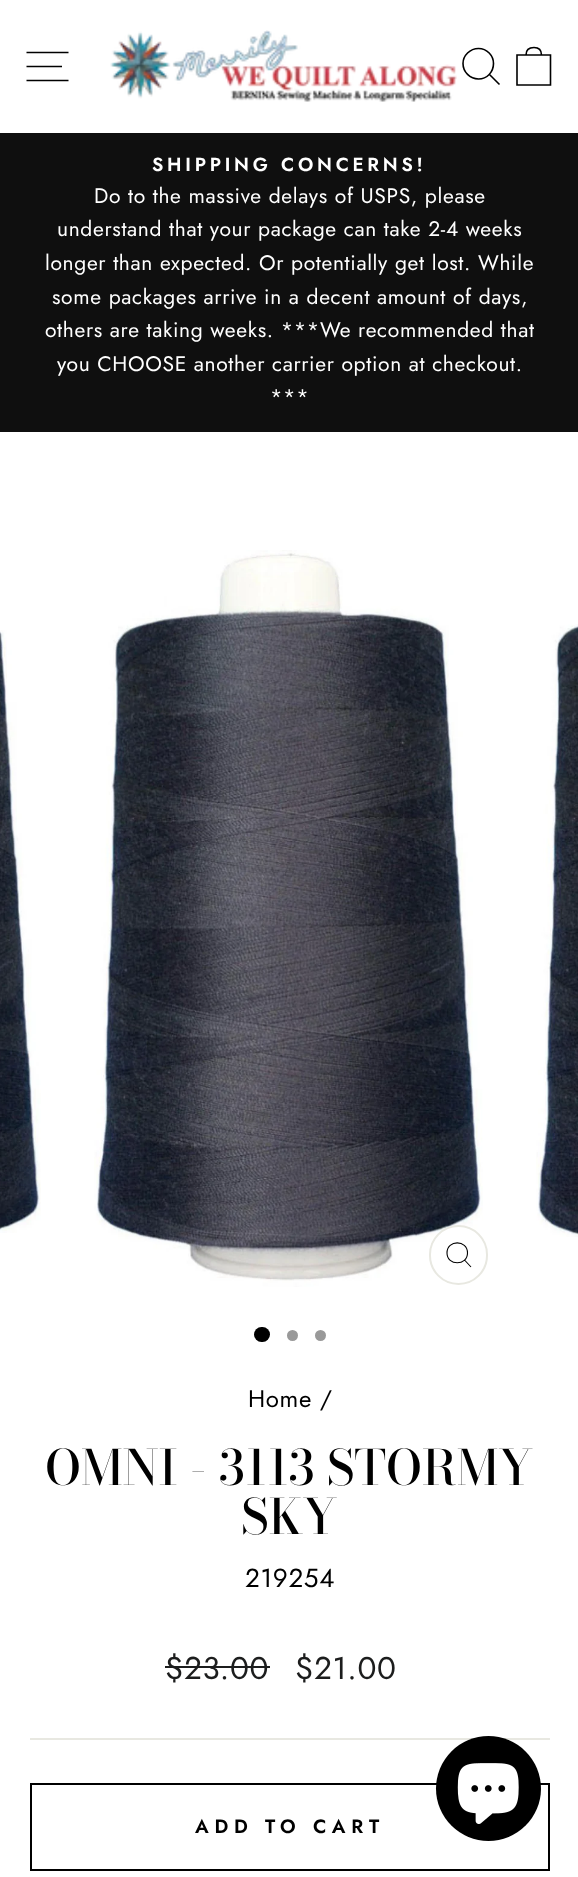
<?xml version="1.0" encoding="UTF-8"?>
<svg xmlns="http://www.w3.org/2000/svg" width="578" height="1877">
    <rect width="100%" height="100%" fill="#FFFFFF"/>
    <path d="M 26.5 52.5 H 68.5 M 26.5 66.5 H 62 M 26.5 80.5 H 68.5" fill="none" stroke="#000000" stroke-width="1.6"/>
    <image x="110" y="30" width="347" height="72" href="img_01.png"/>
    <path d="M 493.5 63.5 C 493.5 72 487 79 478.5 79 C 470 79 463 72 463 63.5 C 463 55.5 470 48.5 478.5 48.5 C 487 48.5 493.5 55.5 493.5 63.5 Z M 499.5 84.5 L 489.5 74.5" fill="none" stroke="#000000" stroke-width="1.6"/>
    <path d="M 517 55 H 550.5 V 85 H 517 Z M 526 55 C 526 49 529.5 47.5 534 47.5 C 538 47.5 541.5 49 541.5 55" fill="none" stroke="#000000" stroke-width="1.6"/>
    <rect x="0" y="133" width="578" height="299" fill="#0F0F0F"/>
    <text x="152" y="171" font-family="Jost" font-size="18.9" font-weight="600" letter-spacing="3.75" fill="#FFFFFF">SHIPPING CONCERNS!</text>
    <text x="94" y="203" font-family="Jost" font-size="21" letter-spacing="0.65" fill="#FFFFFF">Do to the massive delays of USPS, please</text>
    <text x="57" y="236" font-family="Jost" font-size="21" letter-spacing="0.65" fill="#FFFFFF">understand that your package can take 2-4 weeks</text>
    <text x="45" y="270" font-family="Jost" font-size="21" letter-spacing="0.65" fill="#FFFFFF">longer than expected. Or potentially get lost. While</text>
    <text x="52" y="304" font-family="Jost" font-size="21" letter-spacing="0.65" fill="#FFFFFF">some packages arrive in a decent amount of days,</text>
    <text x="45" y="337" font-family="Jost" font-size="21" letter-spacing="0.65" fill="#FFFFFF">others are taking weeks. ***We recommended that</text>
    <text x="57" y="371" font-family="Jost" font-size="21" letter-spacing="0.65" fill="#FFFFFF">you CHOOSE another carrier option at checkout.</text>
    <text x="270" y="404" font-family="Jost" font-size="21" letter-spacing="0.65" fill="#FFFFFF">***</text>
    <image x="0" y="630" width="41" height="603" href="img_02.png"/>
    <image x="94" y="550" width="389" height="737" href="img_03.png"/>
    <rect x="430" y="1226" width="57" height="58" rx="28.5" fill="#FFFFFF" stroke="#E8E8E1" stroke-width="2"/>
    <path d="M 467.5 1253 C 467.5 1266 447 1266 447 1253 C 447 1239.5 467.5 1239.5 467.5 1253 Z M 471 1267 L 464.5 1260" fill="none" stroke="#000000" stroke-width="1.1"/>
    <image x="536" y="624" width="42" height="613" href="img_04.png"/>
    <rect x="254" y="1327" width="16" height="15" rx="7.5" fill="#000000"/>
    <circle cx="292.5" cy="1335.5" r="5.5" fill="#999999"/>
    <circle cx="320.5" cy="1335.5" r="5.5" fill="#999999"/>
    <text x="248" y="1407" font-family="Jost" font-size="24" letter-spacing="0.65" fill="#000000">Home /</text>
    <text x="45" y="1485" font-family="Bodoni Moda" font-size="48.5" font-weight="500" fill="#000000">OMNI - 3113 STORMY</text>
    <text x="241" y="1534" font-family="Bodoni Moda" font-size="48.5" font-weight="500" fill="#000000">SKY</text>
    <text x="245" y="1587" font-family="Jost" font-size="26" letter-spacing="0.65" fill="#000000">219254</text>
    <text x="165" y="1679" font-family="Jost" font-size="31.5" letter-spacing="0.65" fill="#1C1D1D">$23.00</text>
    <rect x="165" y="1666" width="105" height="2" fill="#1C1D1D"/>
    <text x="295" y="1679" font-family="Jost" font-size="31.5" letter-spacing="0.65" fill="#1C1D1D">$21.00</text>
    <rect x="30" y="1738" width="520" height="2" fill="#E8E8E1"/>
    <rect x="31" y="1784" width="518" height="86" fill="none" stroke="#000000" stroke-width="2"/>
    <text x="195" y="1833" font-family="Jost" font-size="19.25" font-weight="600" letter-spacing="5.75" fill="#000000">ADD TO CART</text>
    <circle cx="488.5" cy="1788.5" r="52.5" fill="#000000"/>
    <image x="457" y="1763" width="62" height="61" href="img_05.png"/>
</svg>
